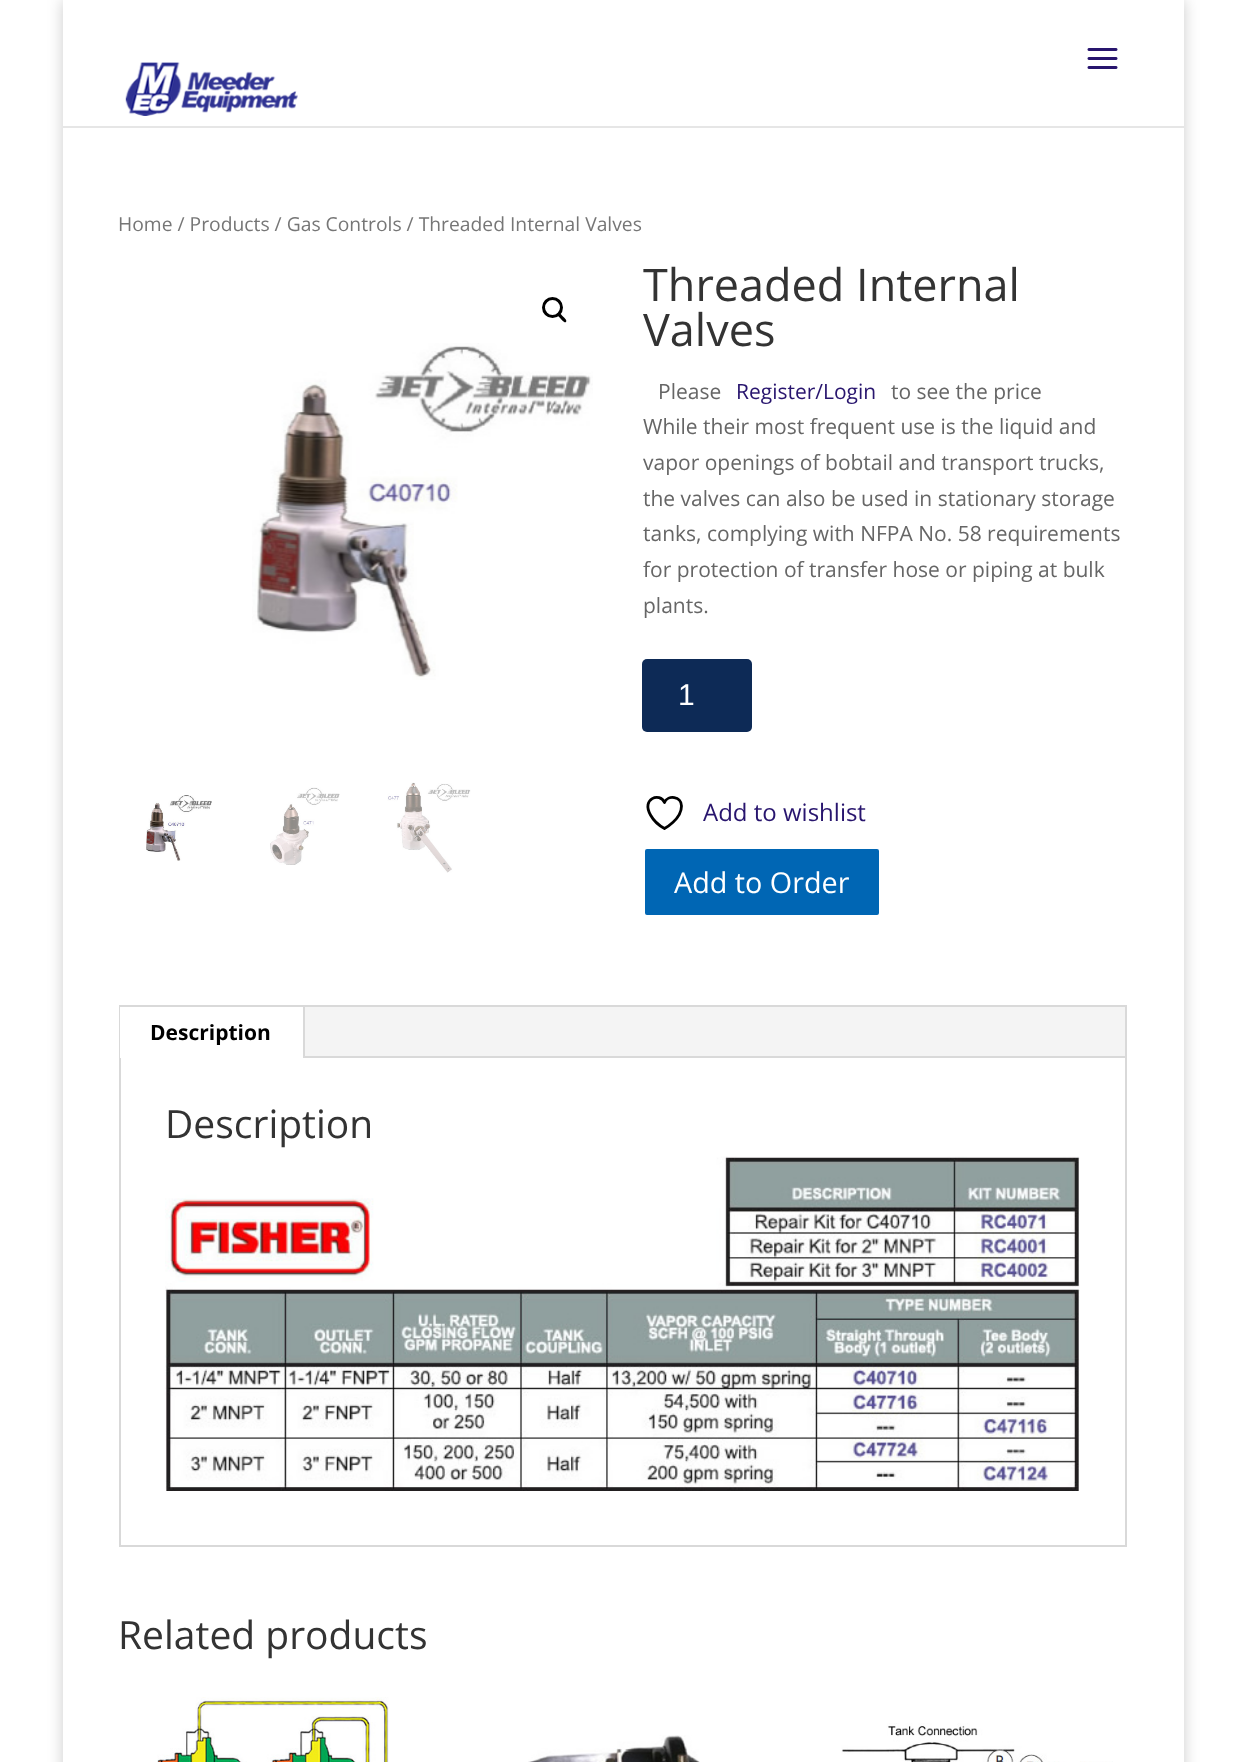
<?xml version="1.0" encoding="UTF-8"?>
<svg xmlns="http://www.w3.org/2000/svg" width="1245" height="1762">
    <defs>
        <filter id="blur1" x="-50%" y="-200%" width="200%" height="500%"><feGaussianBlur stdDeviation="7.5"/></filter>
    </defs>
    <rect width="100%" height="100%" fill="#FFFFFF"/>
    <rect x="63" y="0" width="1121" height="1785" fill="#000000" fill-opacity="0.2" filter="url(#blur1)"/>
    <path d="M 63 126 V 128 H 1184 V 2 V 126 Z" fill="#E6E6E6"/>
    <rect x="63" y="0" width="1121" height="126" fill="#FFFFFF"/>
    <image x="1087" y="48" width="31" height="21" href="img_01.png"/>
    <image x="125" y="62" width="173" height="54" href="img_02.png"/>
    <rect x="63" y="128" width="1121" height="1634" fill="#FFFFFF"/>
    <text x="118" y="231" font-family="Open Sans" font-size="19.3" fill="#767676">Home / Products / Gas Controls / Threaded Internal Valves</text>
    <circle cx="552.5" cy="307.5" r="9" fill="none" stroke="#000000" stroke-width="3"/>
    <path d="M 557.5 313.5 C 559.5 311.5 562 315.5 563 316.5 C 564 317.5 567.5 320 566 322 C 564.5 323.5 561.5 319.5 560.5 318.5 C 560 317.5 556 315 557.5 313.5 Z" fill="#000000"/>
    <image x="252" y="343" width="341" height="337" href="img_03.png"/>
    <image x="146" y="795" width="66" height="66" href="img_04.png"/>
    <image x="270" y="787" width="70" height="78" href="img_05.png"/>
    <image x="387" y="782" width="84" height="91" href="img_06.png"/>
    <text font-family="Open Sans" font-size="45" fill="#333333">
        <tspan x="643" y="301">Threaded Internal</tspan>
        <tspan x="643" y="346">Valves</tspan>
    </text>
    <text x="658" y="399" font-family="Open Sans" font-size="21" fill="#666666">Please</text>
    <text x="736" y="399" font-family="Open Sans" font-size="21" fill="#28156E">Register/Login</text>
    <text x="891" y="399" font-family="Open Sans" font-size="21" fill="#666666">to see the price</text>
    <text font-family="Open Sans" font-size="21" fill="#666666">
        <tspan x="643" y="434">While their most frequent use is the liquid and</tspan>
        <tspan x="643" y="470">vapor openings of bobtail and transport trucks,</tspan>
        <tspan x="643" y="506">the valves can also be used in stationary storage</tspan>
        <tspan x="643" y="541">tanks, complying with NFPA No. 58 requirements</tspan>
        <tspan x="643" y="577">for protection of transfer hose or piping at bulk</tspan>
        <tspan x="643" y="613">plants.</tspan>
    </text>
    <rect x="642" y="659" width="110" height="73" rx="5" fill="#0D2A56"/>
    <text x="678" y="705" font-family="Liberation Sans" font-size="30" fill="#FFFFFF">1</text>
    <path d="M 681.5 806 C 681.5 796.5 668 794.5 664.5 802.5 C 660 792 641 798.5 650.5 815 C 653.5 820.5 659 825.5 664.5 828.5 C 664.5 828.5 681.5 819.5 681.5 806 Z" fill="none" stroke="#000000" stroke-width="2.8" stroke-linecap="round" stroke-linejoin="round"/>
    <text x="703" y="821" font-family="Open Sans" font-size="24" fill="#28156E">Add to wishlist</text>
    <rect x="643.5" y="847.5" width="237" height="69" rx="3.5" fill="#0066B4" stroke="#FFFFFF" stroke-width="3"/>
    <text x="674" y="893" font-family="Open Sans" font-size="28.75" fill="#FFFFFF">Add to Order</text>
    <rect x="120" y="1006" width="1006" height="540" fill="none" stroke="#D9D9D9" stroke-width="2"/>
    <rect x="305" y="1007" width="820" height="49" fill="#F4F4F4"/>
    <rect x="120" y="1007" width="1" height="51" fill="#FFFFFF"/>
    <rect x="303" y="1007" width="2" height="51" fill="#D9D9D9"/>
    <text x="150" y="1040" font-family="Open Sans" font-size="21" font-weight="700" fill="#000000">Description</text>
    <rect x="305" y="1056" width="820" height="2" fill="#D9D9D9"/>
    <text x="165" y="1138" font-family="Open Sans" font-size="39" fill="#333333">Description</text>
    <image x="165" y="1156" width="915" height="335" href="img_07.png"/>
    <text x="118" y="1649" font-family="Open Sans" font-size="39" fill="#333333">Related products</text>
    <image x="157" y="1697" width="232" height="65" href="img_08.png"/>
    <image x="528" y="1735" width="172" height="27" href="img_09.png"/>
    <image x="841" y="1723" width="272" height="39" href="img_10.png"/>
</svg>
